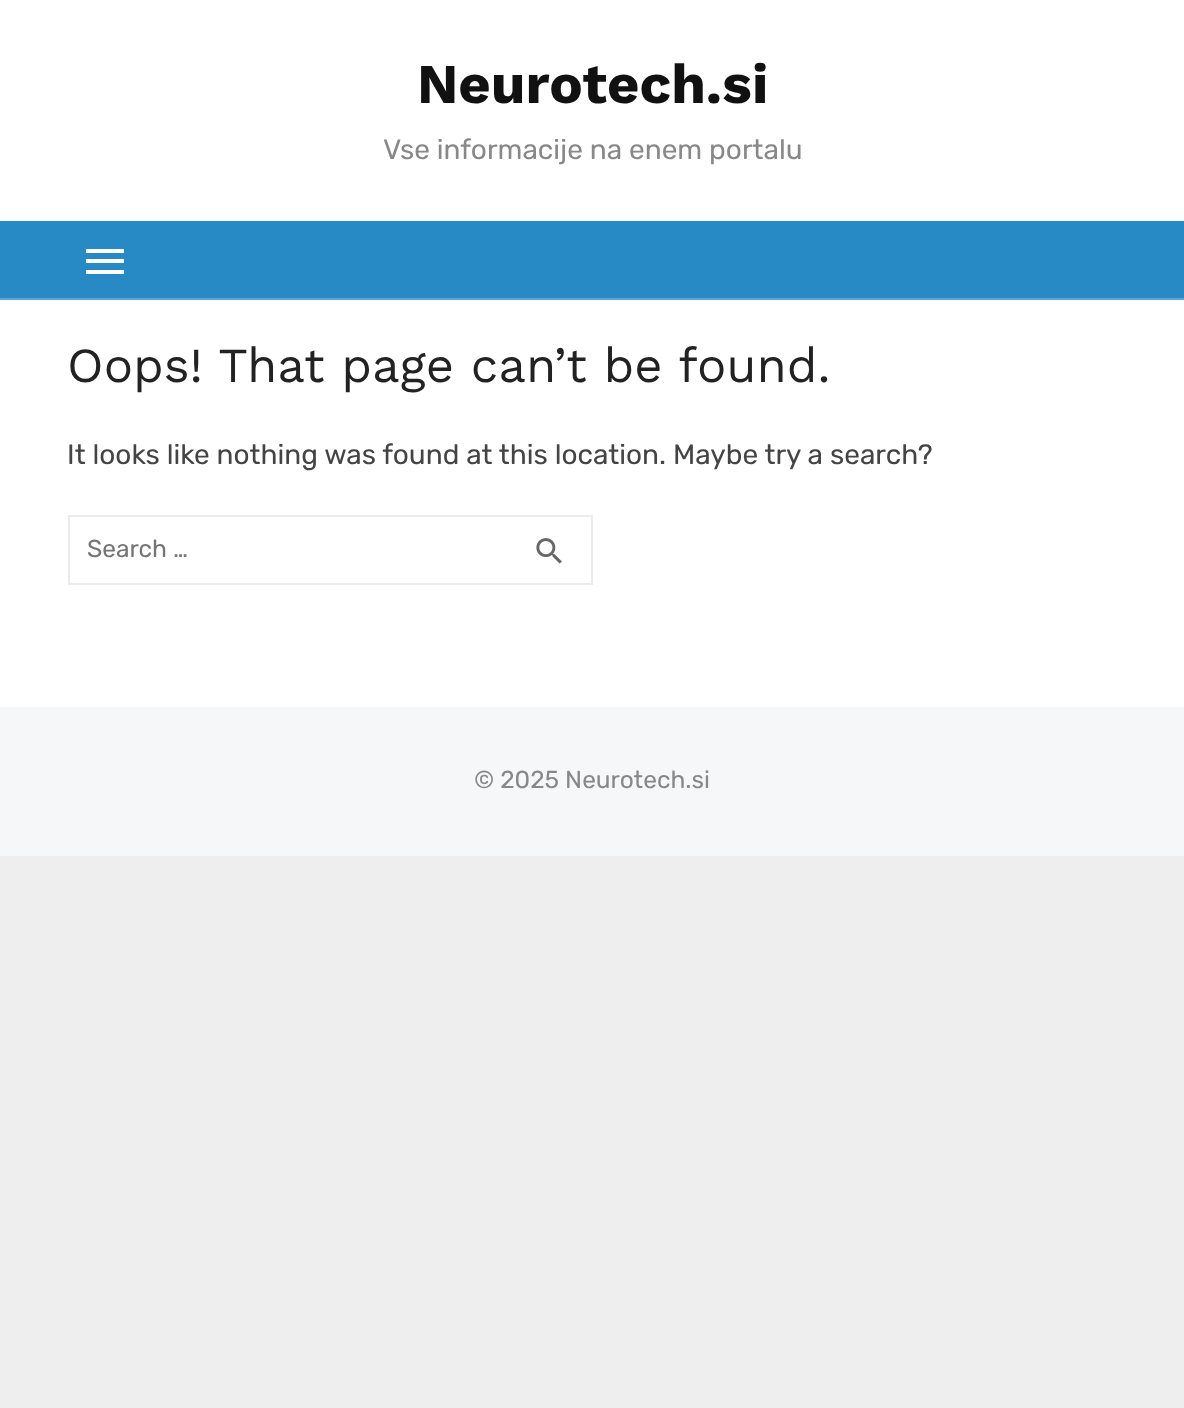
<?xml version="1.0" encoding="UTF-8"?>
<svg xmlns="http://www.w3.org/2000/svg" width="1184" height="1408">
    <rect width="100%" height="100%" fill="#EEEEEE"/>
    <rect x="0" y="0" width="1184" height="707" fill="#FFFFFF"/>
    <text x="417" y="103" font-family="Work Sans" font-size="56" font-weight="700" fill="#111111">Neurotech.si</text>
    <text x="383" y="159" font-family="Rubik" font-size="28" fill="#888888">Vse informacije na enem portalu</text>
    <rect x="0" y="221" width="1184" height="77" fill="#288AC4"/>
    <rect x="86" y="259" width="38" height="4" fill="#FFFFFF"/>
    <rect x="86" y="249" width="38" height="4" fill="#FFFFFF"/>
    <rect x="86" y="270" width="38" height="4" fill="#FFFFFF"/>
    <rect x="0" y="298" width="1184" height="2" fill="#5EA7D3"/>
    <text x="67" y="382" font-family="Work Sans" font-size="49" fill="#222222">Oops! That page can’t be found.</text>
    <text x="67" y="464" font-family="Rubik" font-size="28" fill="#444444">It looks like nothing was found at this location. Maybe try a search?</text>
    <rect x="69" y="516" width="523" height="68" fill="none" stroke="#EBEBEB" stroke-width="2"/>
    <text x="87" y="557" font-family="Rubik" font-size="24.5" fill="#757575">Search …</text>
    <image x="536" y="538" width="26" height="26" href="img_01.png"/>
    <rect x="0" y="707" width="1184" height="149" fill="#F6F7F8"/>
    <text x="474" y="788" font-family="Rubik" font-size="24.5" fill="#888888">© 2025 Neurotech.si</text>
</svg>
